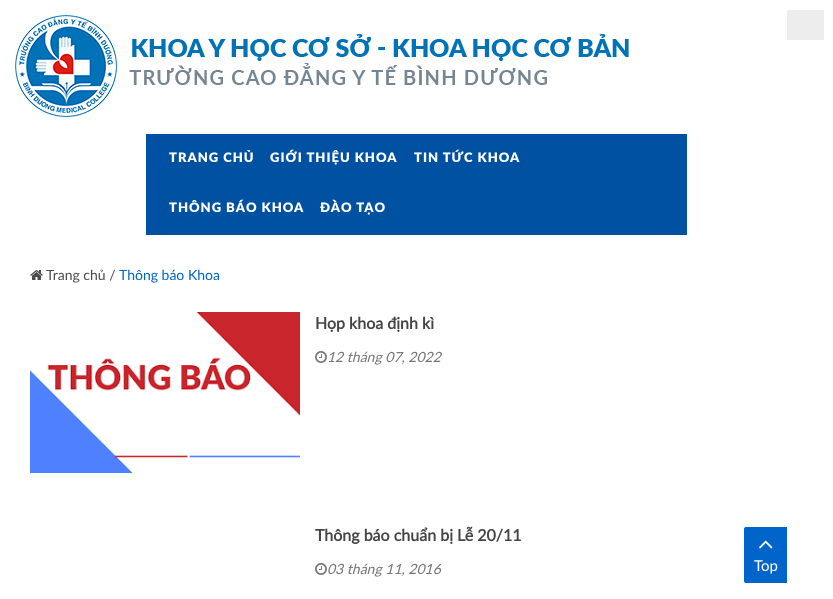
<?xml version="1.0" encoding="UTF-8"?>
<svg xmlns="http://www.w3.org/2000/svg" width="833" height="599">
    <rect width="100%" height="100%" fill="#FFFFFF"/>
    <image x="15" y="15" width="614" height="102" href="img_01.png"/>
    <rect x="787" y="10" width="37" height="30" fill="#EDEDED"/>
    <rect x="146" y="134" width="541" height="101" fill="#0051A2"/>
    <text x="169" y="162" font-family="Lato" font-size="13" font-weight="900" letter-spacing="1" fill="#FFFFFF">TRANG CHỦ</text>
    <text x="270" y="162" font-family="Lato" font-size="13" font-weight="900" letter-spacing="1" fill="#FFFFFF">GIỚI THIỆU KHOA</text>
    <text x="414" y="162" font-family="Lato" font-size="13" font-weight="900" letter-spacing="1" fill="#FFFFFF">TIN TỨC KHOA</text>
    <text x="169" y="212" font-family="Lato" font-size="13" font-weight="900" letter-spacing="1" fill="#FFFFFF">THÔNG BÁO KHOA</text>
    <text x="320" y="212" font-family="Lato" font-size="13" font-weight="900" letter-spacing="1" fill="#FFFFFF">ĐÀO TẠO</text>
    <image x="30" y="270" width="13" height="10" href="img_02.png"/>
    <text x="46" y="280" font-family="Lato" font-size="14" fill="#4B4B4B">Trang chủ /</text>
    <text x="119" y="280" font-family="Lato" font-size="14" fill="#0065CA">Thông báo Khoa</text>
    <image x="30" y="312" width="270" height="161" href="img_03.png"/>
    <text x="315" y="329" font-family="Lato" font-size="16" font-weight="700" fill="#454545">Họp khoa định kì</text>
    <image x="315" y="351" width="12" height="12" href="img_04.png"/>
    <text x="327" y="362" font-family="Lato" font-size="14" font-style="italic" fill="#777777">12 tháng 07, 2022</text>
    <text x="315" y="541" font-family="Lato" font-size="16" font-weight="700" fill="#454545">Thông báo chuẩn bị Lễ 20/11</text>
    <image x="315" y="563" width="12" height="12" href="img_04.png"/>
    <text x="327" y="574" font-family="Lato" font-size="14" font-style="italic" fill="#777777">03 tháng 11, 2016</text>
    <path d="M 746 526.5 H 787.5 V 583.5 H 746 C 744.5 583.5 743.5 582.5 743.5 581 V 529 C 743.5 527.5 744.5 526.5 746 526.5 Z" fill="#0065CA" stroke="#FFFFFF"/>
    <image x="759" y="540" width="14" height="9" href="img_05.png"/>
    <text x="754" y="571" font-family="Lato" font-size="15" fill="#FFFFFF">Top</text>
</svg>
